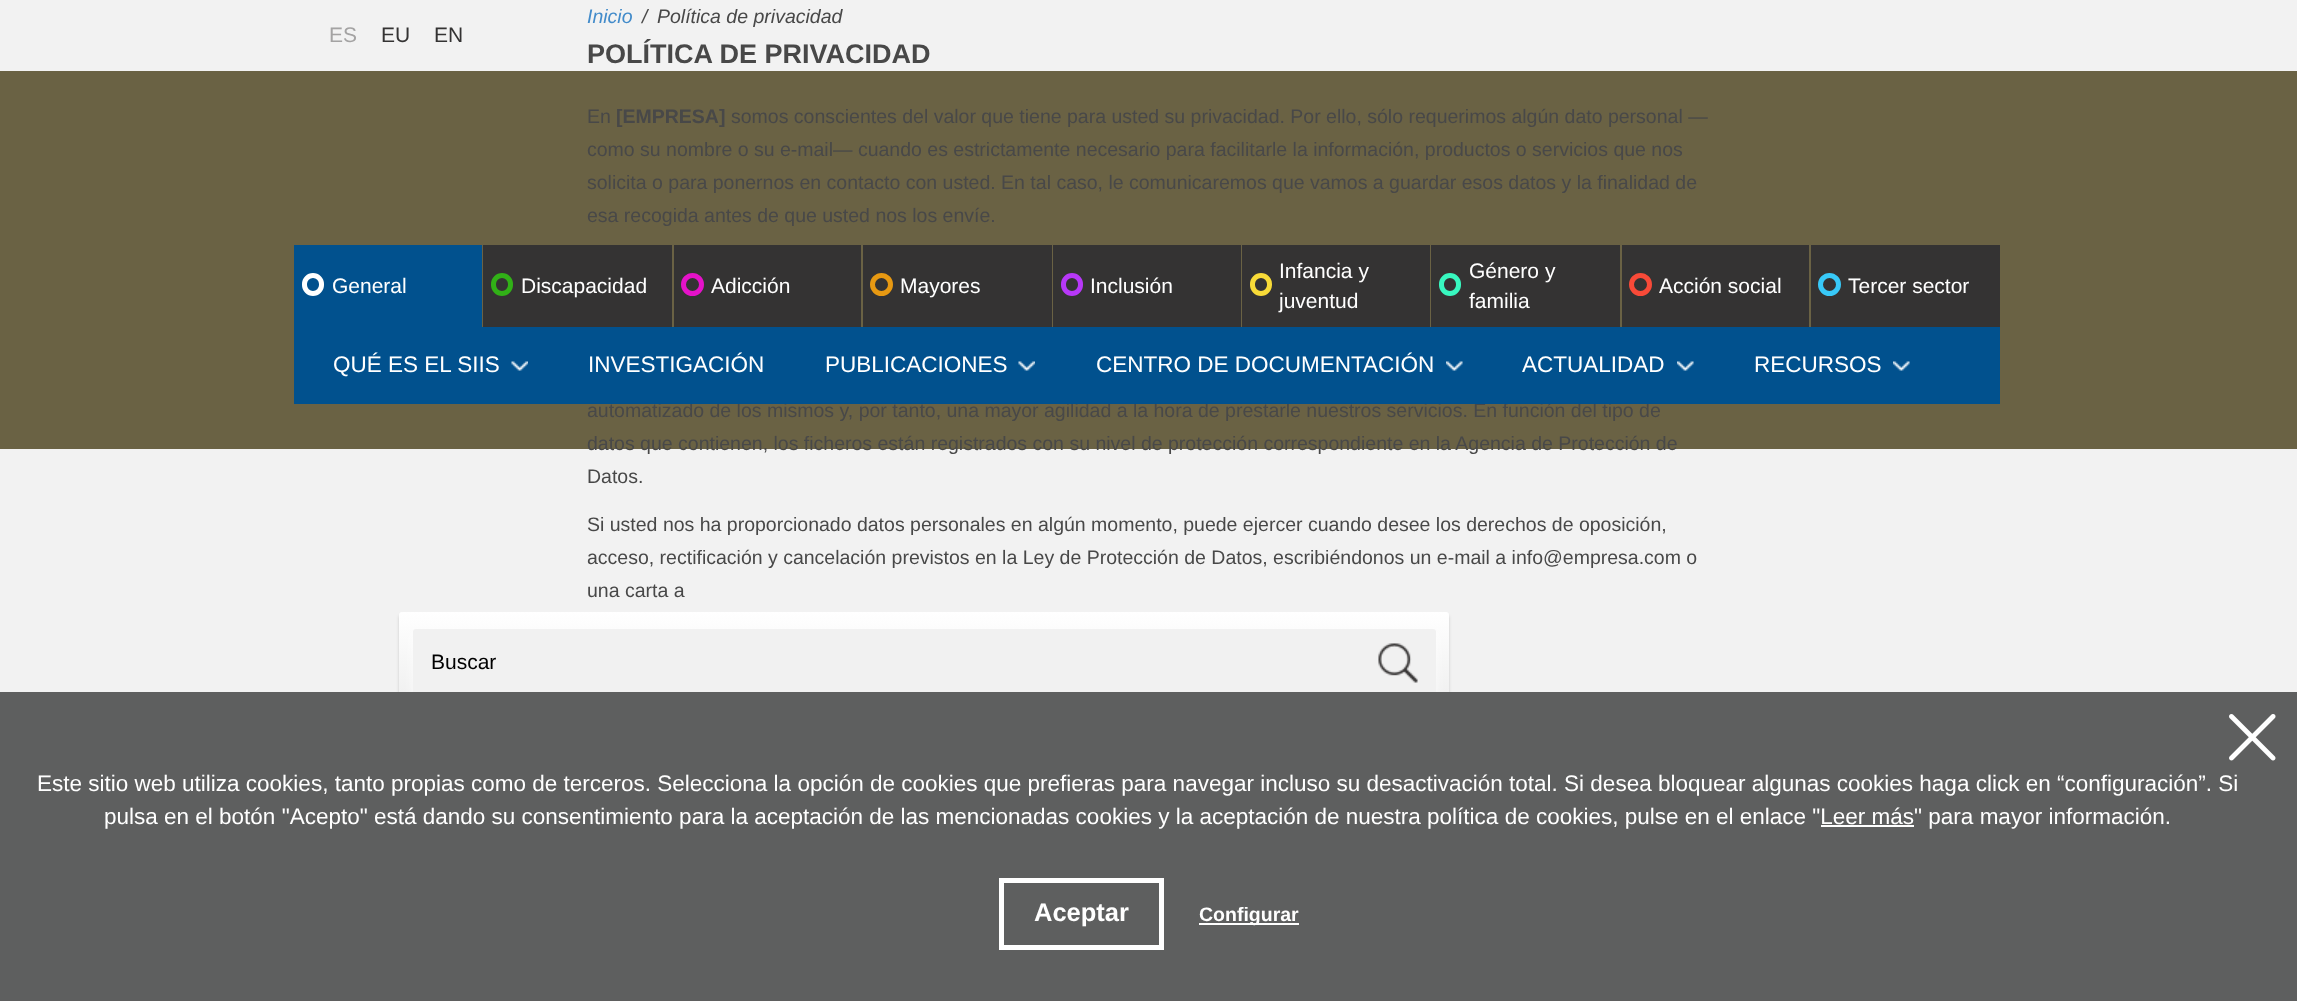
<?xml version="1.0" encoding="UTF-8"?>
<svg xmlns="http://www.w3.org/2000/svg" width="2297" height="1001">
    <defs>
        <filter id="blur1" x="-50%" y="-200%" width="200%" height="500%"><feGaussianBlur stdDeviation="1.5"/></filter>
        <linearGradient id="g1" gradientUnits="userSpaceOnUse" x1="924" y1="713" x2="924" y2="612"><stop offset="0" stop-color="#000200" stop-opacity="0.07"/><stop offset="1" stop-color="#FFFFFF" stop-opacity="0.07"/></linearGradient>
        <filter id="blur2" x="-50%" y="-200%" width="200%" height="500%"><feGaussianBlur stdDeviation="4"/></filter>
    </defs>
    <rect width="100%" height="100%" fill="#F2F2F2"/>
    <text x="587" y="23" font-family="Liberation Sans" font-size="19.5" font-style="italic" fill="#428BCA">Inicio</text>
    <text x="642" y="23" font-family="Liberation Sans" font-size="19.5" font-style="italic" fill="#484848">/</text>
    <text x="657" y="23" font-family="Liberation Sans" font-size="19.5" font-style="italic" fill="#484848">Política de privacidad</text>
    <text x="587" y="63" font-family="Liberation Sans" font-size="27" font-weight="700" fill="#484848">POLÍTICA DE PRIVACIDAD</text>
    <rect x="0" y="71" width="2297" height="378" fill="#6A6244"/>
    <text x="587" y="123" font-family="Liberation Sans" font-size="19.5" fill="#484848">En</text>
    <text x="616" y="123" font-family="Liberation Sans" font-size="19.5" font-weight="700" fill="#484848">[EMPRESA]</text>
    <text x="731" y="123" font-family="Liberation Sans" font-size="19.5" fill="#484848">somos conscientes del valor que tiene para usted su privacidad. Por ello, sólo requerimos algún dato personal —</text>
    <text font-family="Liberation Sans" font-size="19.5" fill="#484848">
        <tspan x="587" y="156">como su nombre o su e-mail— cuando es estrictamente necesario para facilitarle la información, productos o servicios que nos</tspan>
        <tspan x="587" y="189">solicita o para ponernos en contacto con usted. En tal caso, le comunicaremos que vamos a guardar esos datos y la finalidad de</tspan>
        <tspan x="587" y="222">esa recogida antes de que usted nos los envíe.</tspan>
    </text>
    <text font-family="Liberation Sans" font-size="19.5" fill="#484848">
        <tspan x="587" y="417">automatizado de los mismos y, por tanto, una mayor agilidad a la hora de prestarle nuestros servicios. En función del tipo de</tspan>
        <tspan x="587" y="450">datos que contienen, los ficheros están registrados con su nivel de protección correspondiente en la Agencia de Protección de</tspan>
        <tspan x="587" y="483">Datos.</tspan>
    </text>
    <text font-family="Liberation Sans" font-size="19.5" fill="#484848">
        <tspan x="587" y="531">Si usted nos ha proporcionado datos personales en algún momento, puede ejercer cuando desee los derechos de oposición,</tspan>
        <tspan x="587" y="564">acceso, rectificación y cancelación previstos en la Ley de Protección de Datos, escribiéndonos un e-mail a info@empresa.com o</tspan>
        <tspan x="587" y="597">una carta a</tspan>
    </text>
    <text x="329" y="42" font-family="Liberation Sans" font-size="21" fill="#A4A3A3">ES</text>
    <text x="381" y="42" font-family="Liberation Sans" font-size="21" fill="#343333">EU</text>
    <text x="434" y="42" font-family="Liberation Sans" font-size="21" fill="#343333">EN</text>
    <rect x="1242" y="245" width="188" height="82" fill="#343333"/>
    <rect x="1252.5" y="275.5" width="17" height="18" rx="8.5" fill="none" stroke="#F8DB38" stroke-width="5"/>
    <text font-family="Liberation Sans" font-size="21" fill="#FFFFFF">
        <tspan x="1279" y="278">Infancia y</tspan>
        <tspan x="1279" y="308">juventud</tspan>
    </text>
    <rect x="1431" y="245" width="189" height="82" fill="#343333"/>
    <rect x="1441.5" y="275.5" width="17" height="18" rx="8.5" fill="none" stroke="#38F8C0" stroke-width="5"/>
    <text font-family="Liberation Sans" font-size="21" fill="#FFFFFF">
        <tspan x="1469" y="278">Género y</tspan>
        <tspan x="1469" y="308">familia</tspan>
    </text>
    <rect x="294" y="245" width="188" height="82" fill="#01518E"/>
    <rect x="304.5" y="275.5" width="17" height="18" rx="8.5" fill="none" stroke="#FFFFFF" stroke-width="5"/>
    <text x="332" y="293" font-family="Liberation Sans" font-size="21" fill="#FFFFFF">General</text>
    <rect x="294" y="327" width="1706" height="77" fill="#01518E"/>
    <text x="333" y="372" font-family="Liberation Sans" font-size="22.5" fill="#FFFFFF">QUÉ ES EL SIIS</text>
    <image x="511" y="361" width="17" height="10" href="img_01.png"/>
    <text x="588" y="372" font-family="Liberation Sans" font-size="22.5" fill="#FFFFFF">INVESTIGACIÓN</text>
    <text x="825" y="372" font-family="Liberation Sans" font-size="22.5" fill="#FFFFFF">PUBLICACIONES</text>
    <image x="1018" y="361" width="17" height="10" href="img_02.png"/>
    <text x="1096" y="372" font-family="Liberation Sans" font-size="22.5" fill="#FFFFFF">CENTRO DE DOCUMENTACIÓN</text>
    <image x="1446" y="361" width="17" height="10" href="img_03.png"/>
    <text x="1522" y="372" font-family="Liberation Sans" font-size="22.5" fill="#FFFFFF">ACTUALIDAD</text>
    <image x="1677" y="361" width="17" height="10" href="img_03.png"/>
    <text x="1754" y="372" font-family="Liberation Sans" font-size="22.5" fill="#FFFFFF">RECURSOS</text>
    <image x="1893" y="361" width="17" height="10" href="img_04.png"/>
    <rect x="483" y="245" width="189" height="82" fill="#343333"/>
    <rect x="493.5" y="275.5" width="17" height="18" rx="8.5" fill="none" stroke="#31B117" stroke-width="5"/>
    <text x="521" y="293" font-family="Liberation Sans" font-size="21" fill="#FFFFFF">Discapacidad</text>
    <rect x="674" y="245" width="187" height="82" fill="#343333"/>
    <circle cx="692.5" cy="284.5" r="9" fill="none" stroke="#E512C9" stroke-width="5"/>
    <text x="711" y="293" font-family="Liberation Sans" font-size="21" fill="#FFFFFF">Adicción</text>
    <rect x="863" y="245" width="189" height="82" fill="#343333"/>
    <circle cx="881.5" cy="284.5" r="9" fill="none" stroke="#E79912" stroke-width="5"/>
    <text x="900" y="293" font-family="Liberation Sans" font-size="21" fill="#FFFFFF">Mayores</text>
    <rect x="1053" y="245" width="188" height="82" fill="#343333"/>
    <rect x="1063.5" y="275.5" width="17" height="18" rx="8.5" fill="none" stroke="#B738F8" stroke-width="5"/>
    <text x="1090" y="293" font-family="Liberation Sans" font-size="21" fill="#FFFFFF">Inclusión</text>
    <rect x="1622" y="245" width="187" height="82" fill="#343333"/>
    <circle cx="1640.5" cy="284.5" r="9" fill="none" stroke="#F84A38" stroke-width="5"/>
    <text x="1659" y="293" font-family="Liberation Sans" font-size="21" fill="#FFFFFF">Acción social</text>
    <rect x="1811" y="245" width="189" height="82" fill="#343333"/>
    <circle cx="1829.5" cy="284.5" r="9" fill="none" stroke="#38C9F8" stroke-width="5"/>
    <text x="1848" y="293" font-family="Liberation Sans" font-size="21" fill="#FFFFFF">Tercer sector</text>
    <rect x="399" y="615" width="1050" height="101" rx="3" fill="#000200" fill-opacity="0.17" filter="url(#blur1)"/>
    <rect x="399" y="612" width="1050" height="101" rx="3" fill="#FFFFFF"/>
    <rect x="399" y="612" width="1050" height="101" rx="3" fill="url(#g1)"/>
    <rect x="413" y="632" width="1023" height="66" rx="3" fill="#FFFFFF" fill-opacity="0.75" filter="url(#blur2)"/>
    <rect x="413" y="629" width="1023" height="66" rx="3" fill="#F1F1F1"/>
    <text x="431" y="669" font-family="Liberation Sans" font-size="21" fill="#000000">Buscar</text>
    <image x="1378" y="643" width="40" height="40" href="img_05.png"/>
    <rect x="0" y="692" width="2297" height="309" fill="#5E5F5F"/>
    <image x="2229" y="714" width="47" height="47" href="img_06.png"/>
    <text x="37" y="791" font-family="Liberation Sans" font-size="22.5" fill="#FFFFFF">Este sitio web utiliza cookies, tanto propias como de terceros. Selecciona la opción de cookies que prefieras para navegar incluso su desactivación total. Si desea bloquear algunas cookies haga click en “configuración”. Si</text>
    <text x="104" y="824" font-family="Liberation Sans" font-size="22.5" fill="#FFFFFF">pulsa en el botón "Acepto" está dando su consentimiento para la aceptación de las mencionadas cookies y la aceptación de nuestra política de cookies, pulse en el enlace "Leer más" para mayor información.</text>
    <rect x="1821" y="825" width="93" height="2" fill="#FFFFFF"/>
    <rect x="1001.5" y="880.5" width="160" height="67" fill="none" stroke="#FFFFFF" stroke-width="5"/>
    <text x="1034" y="921" font-family="Liberation Sans" font-size="25.5" font-weight="700" fill="#FFFFFF">Aceptar</text>
    <rect x="1199" y="923" width="100" height="2" fill="#FFFFFF"/>
    <text x="1199" y="921" font-family="Liberation Sans" font-size="19.5" font-weight="700" fill="#FFFFFF">Configurar</text>
</svg>
